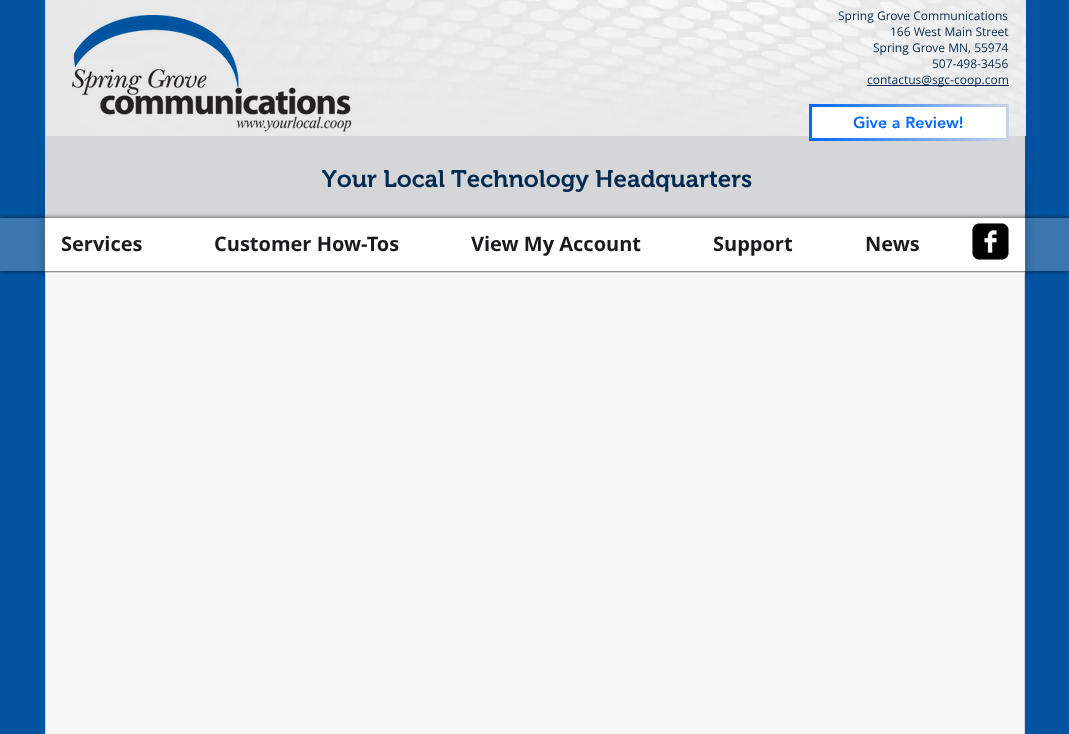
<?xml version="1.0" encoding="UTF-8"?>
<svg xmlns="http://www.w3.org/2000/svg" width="1069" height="734">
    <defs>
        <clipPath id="clip1"><path d="M 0 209 H 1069 V 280 H 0 Z M 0 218 H 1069 V 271 H 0 Z" clip-rule="evenodd"/></clipPath>
        <filter id="blur1" x="-50%" y="-200%" width="200%" height="500%"><feGaussianBlur stdDeviation="2.5"/></filter>
    </defs>
    <rect width="100%" height="100%" fill="#0254A1"/>
    <image x="35" y="134" width="10" height="147" href="img_01.png"/>
    <rect x="45" y="0" width="980" height="272" fill="#D4D6D7"/>
    <image x="1025" y="136" width="10" height="145" href="img_02.png"/>
    <image x="46" y="0" width="980" height="136" href="img_03.png"/>
    <image x="72" y="15" width="280" height="117" href="img_04.png"/>
    <text x="838" y="20" font-family="Open Sans" font-size="12" fill="#012A50">Spring Grove Communications</text>
    <text x="890" y="36" font-family="Open Sans" font-size="12" fill="#012A50">166 West Main Street</text>
    <text x="873" y="52" font-family="Open Sans" font-size="12" fill="#012A50">Spring Grove MN, 55974</text>
    <text x="932" y="68" font-family="Open Sans" font-size="12" fill="#012A50">507-498-3456</text>
    <rect x="867" y="85" width="142" height="1" fill="#012A50"/>
    <text x="867" y="84" font-family="Open Sans" font-size="12" fill="#012A50">contactus@sgc-coop.com</text>
    <rect x="812" y="107" width="194" height="31" fill="#FFFFFF"/>
    <image x="809" y="104" width="200" height="37" href="img_05.png"/>
    <text x="853" y="128" font-family="'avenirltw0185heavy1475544'" font-size="16" font-weight="900" fill="#0069FF">Give a Review!</text>
    <text x="322" y="187" font-family="'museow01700'" font-size="24" font-weight="600" fill="#012A50">Your Local Technology Headquarters</text>
    <g clip-path="url(#clip1)">
        <rect x="0" y="218" width="1069" height="53" fill="#000000" fill-opacity="0.7" filter="url(#blur1)"/>
    </g>
    <rect x="0" y="218" width="1069" height="53" fill="#D4D6D7" fill-opacity="0.27"/>
    <rect x="45" y="218" width="980" height="53" fill="#FFFFFF"/>
    <text x="61" y="251" font-family="Open Sans" font-size="20" font-weight="700" fill="#181A1C">Services</text>
    <text x="214" y="251" font-family="Open Sans" font-size="20" font-weight="700" fill="#181A1C">Customer How-Tos</text>
    <text x="471" y="251" font-family="Open Sans" font-size="20" font-weight="700" fill="#181A1C">View My Account</text>
    <text x="713" y="251" font-family="Open Sans" font-size="20" font-weight="700" fill="#181A1C">Support</text>
    <text x="865" y="251" font-family="Open Sans" font-size="20" font-weight="700" fill="#181A1C">News</text>
    <image x="972" y="223" width="37" height="37" href="img_06.png"/>
    <rect x="45.5" y="272.5" width="979" height="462" fill="#F8F8F8" stroke="#D4D6D7"/>
</svg>
